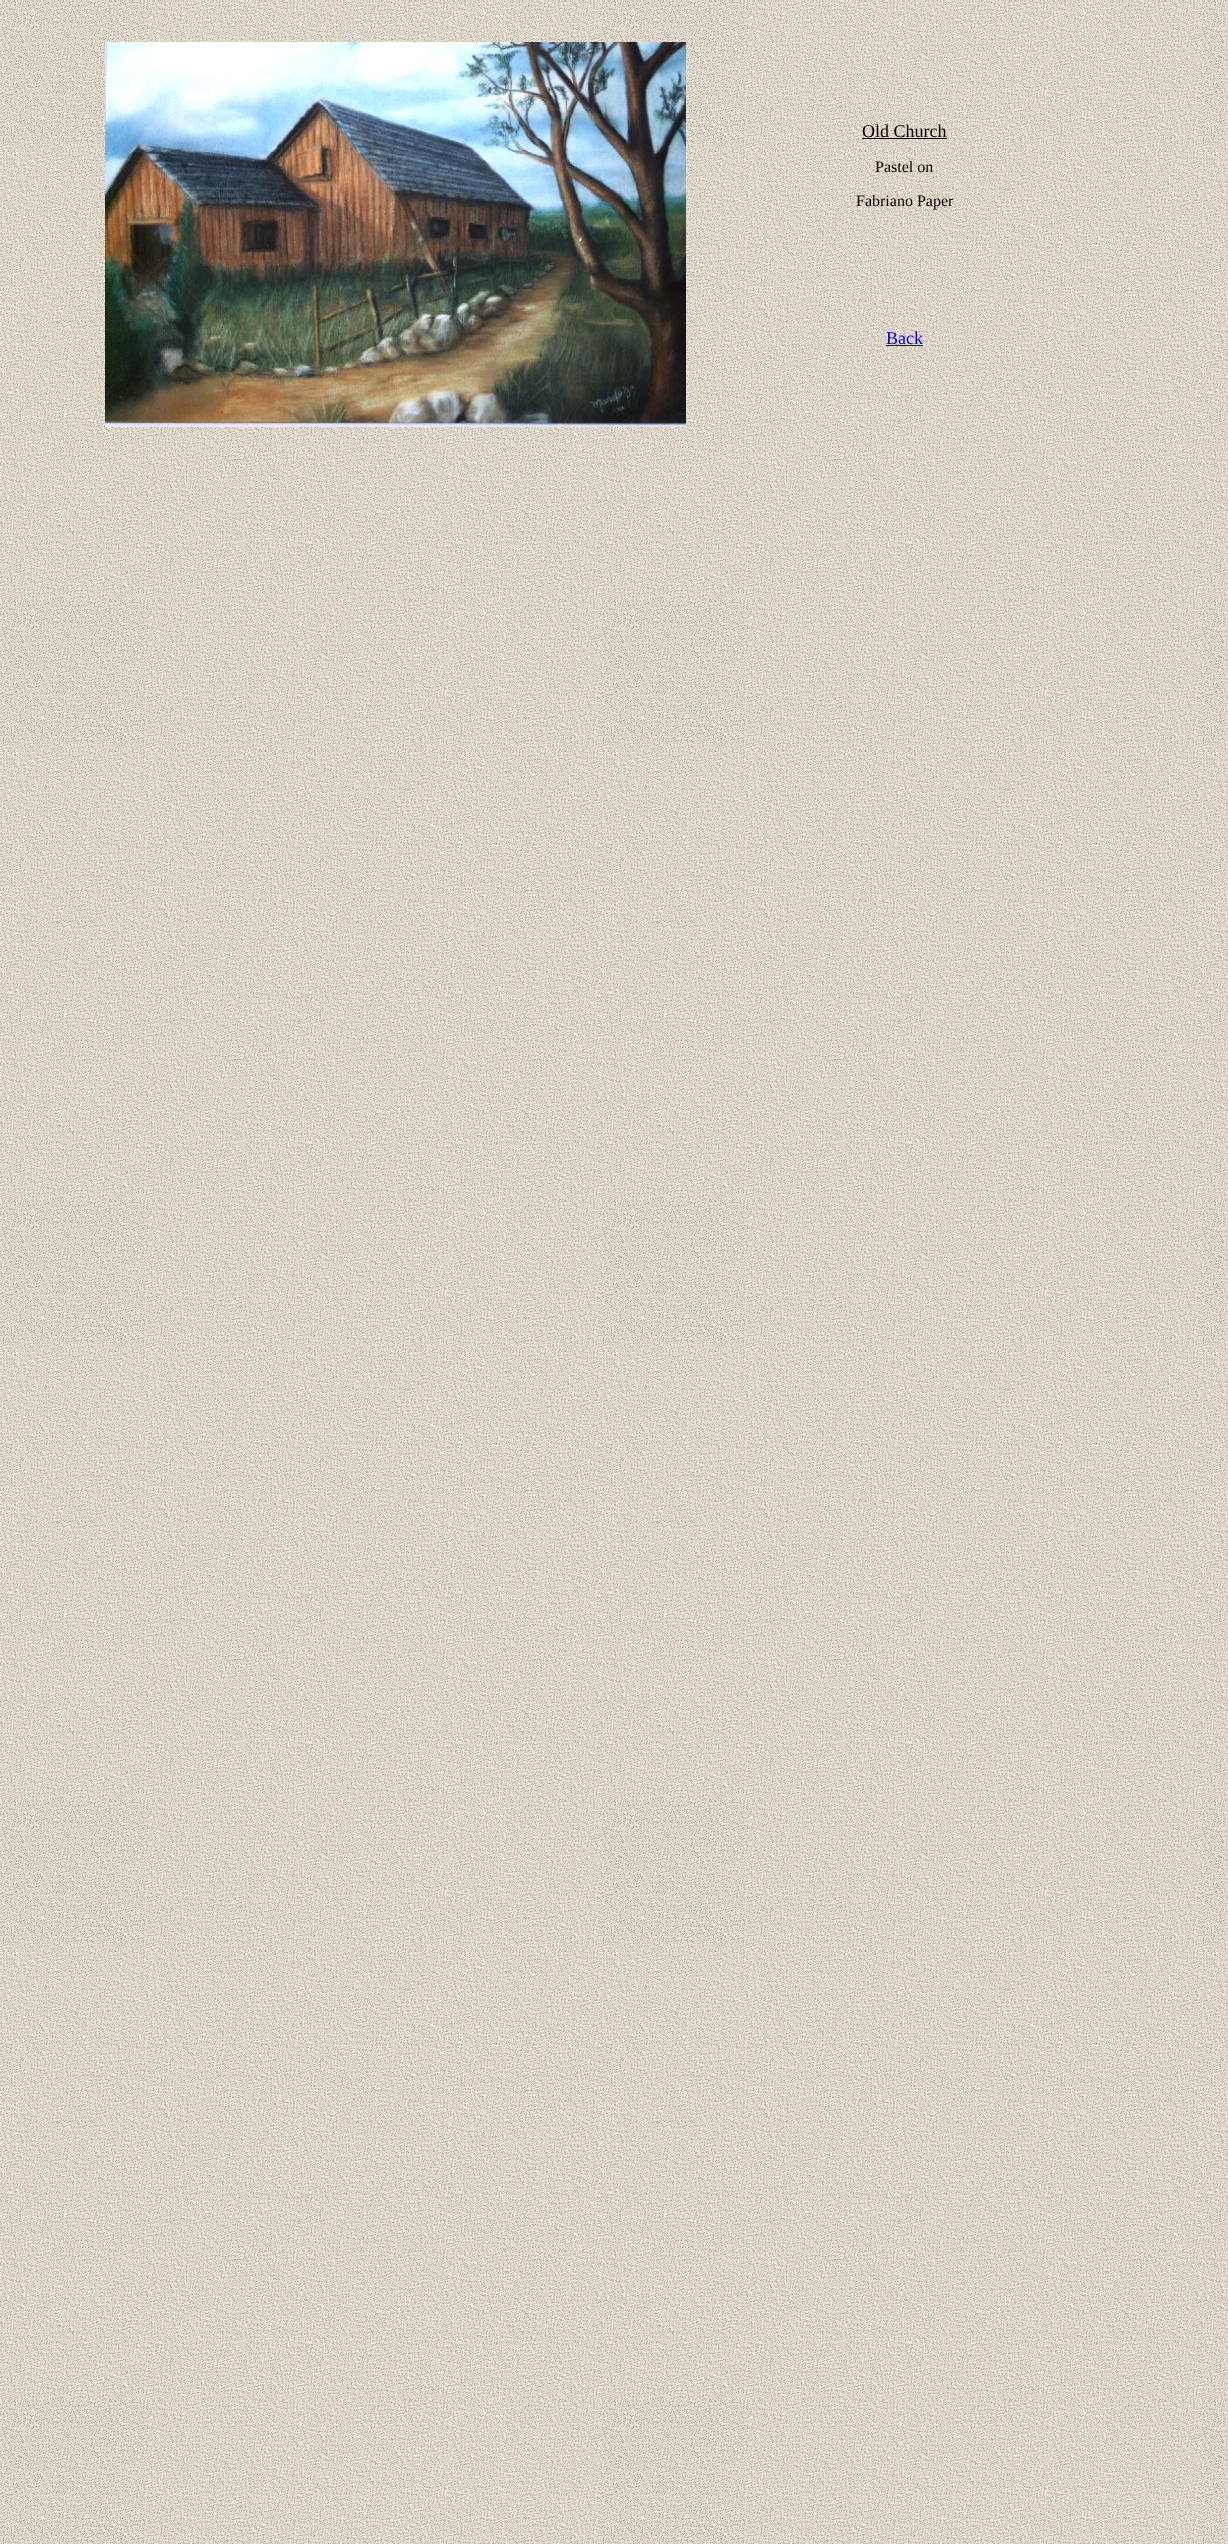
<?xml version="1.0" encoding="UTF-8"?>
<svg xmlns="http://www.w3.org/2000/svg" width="1228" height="2544">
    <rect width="100%" height="100%" fill="#FFFFFF"/>
    <image x="0" y="0" width="1228" height="2544" href="img_01.png"/>
    <image x="105" y="42" width="581" height="385" href="img_02.png"/>
    <text x="862" y="137" font-family="Liberation Serif" font-size="18" fill="#000000">Old Church</text>
    <rect x="862" y="138" width="85" height="1" fill="#000000"/>
    <text x="875" y="172" font-family="Liberation Serif" font-size="16" fill="#000000">Pastel on</text>
    <text x="856" y="206" font-family="Liberation Serif" font-size="16" fill="#000000">Fabriano Paper</text>
    <text x="886" y="344" font-family="Liberation Serif" font-size="18" fill="#0000EE">Back</text>
    <rect x="886" y="345" width="37" height="1" fill="#0000EE"/>
</svg>
